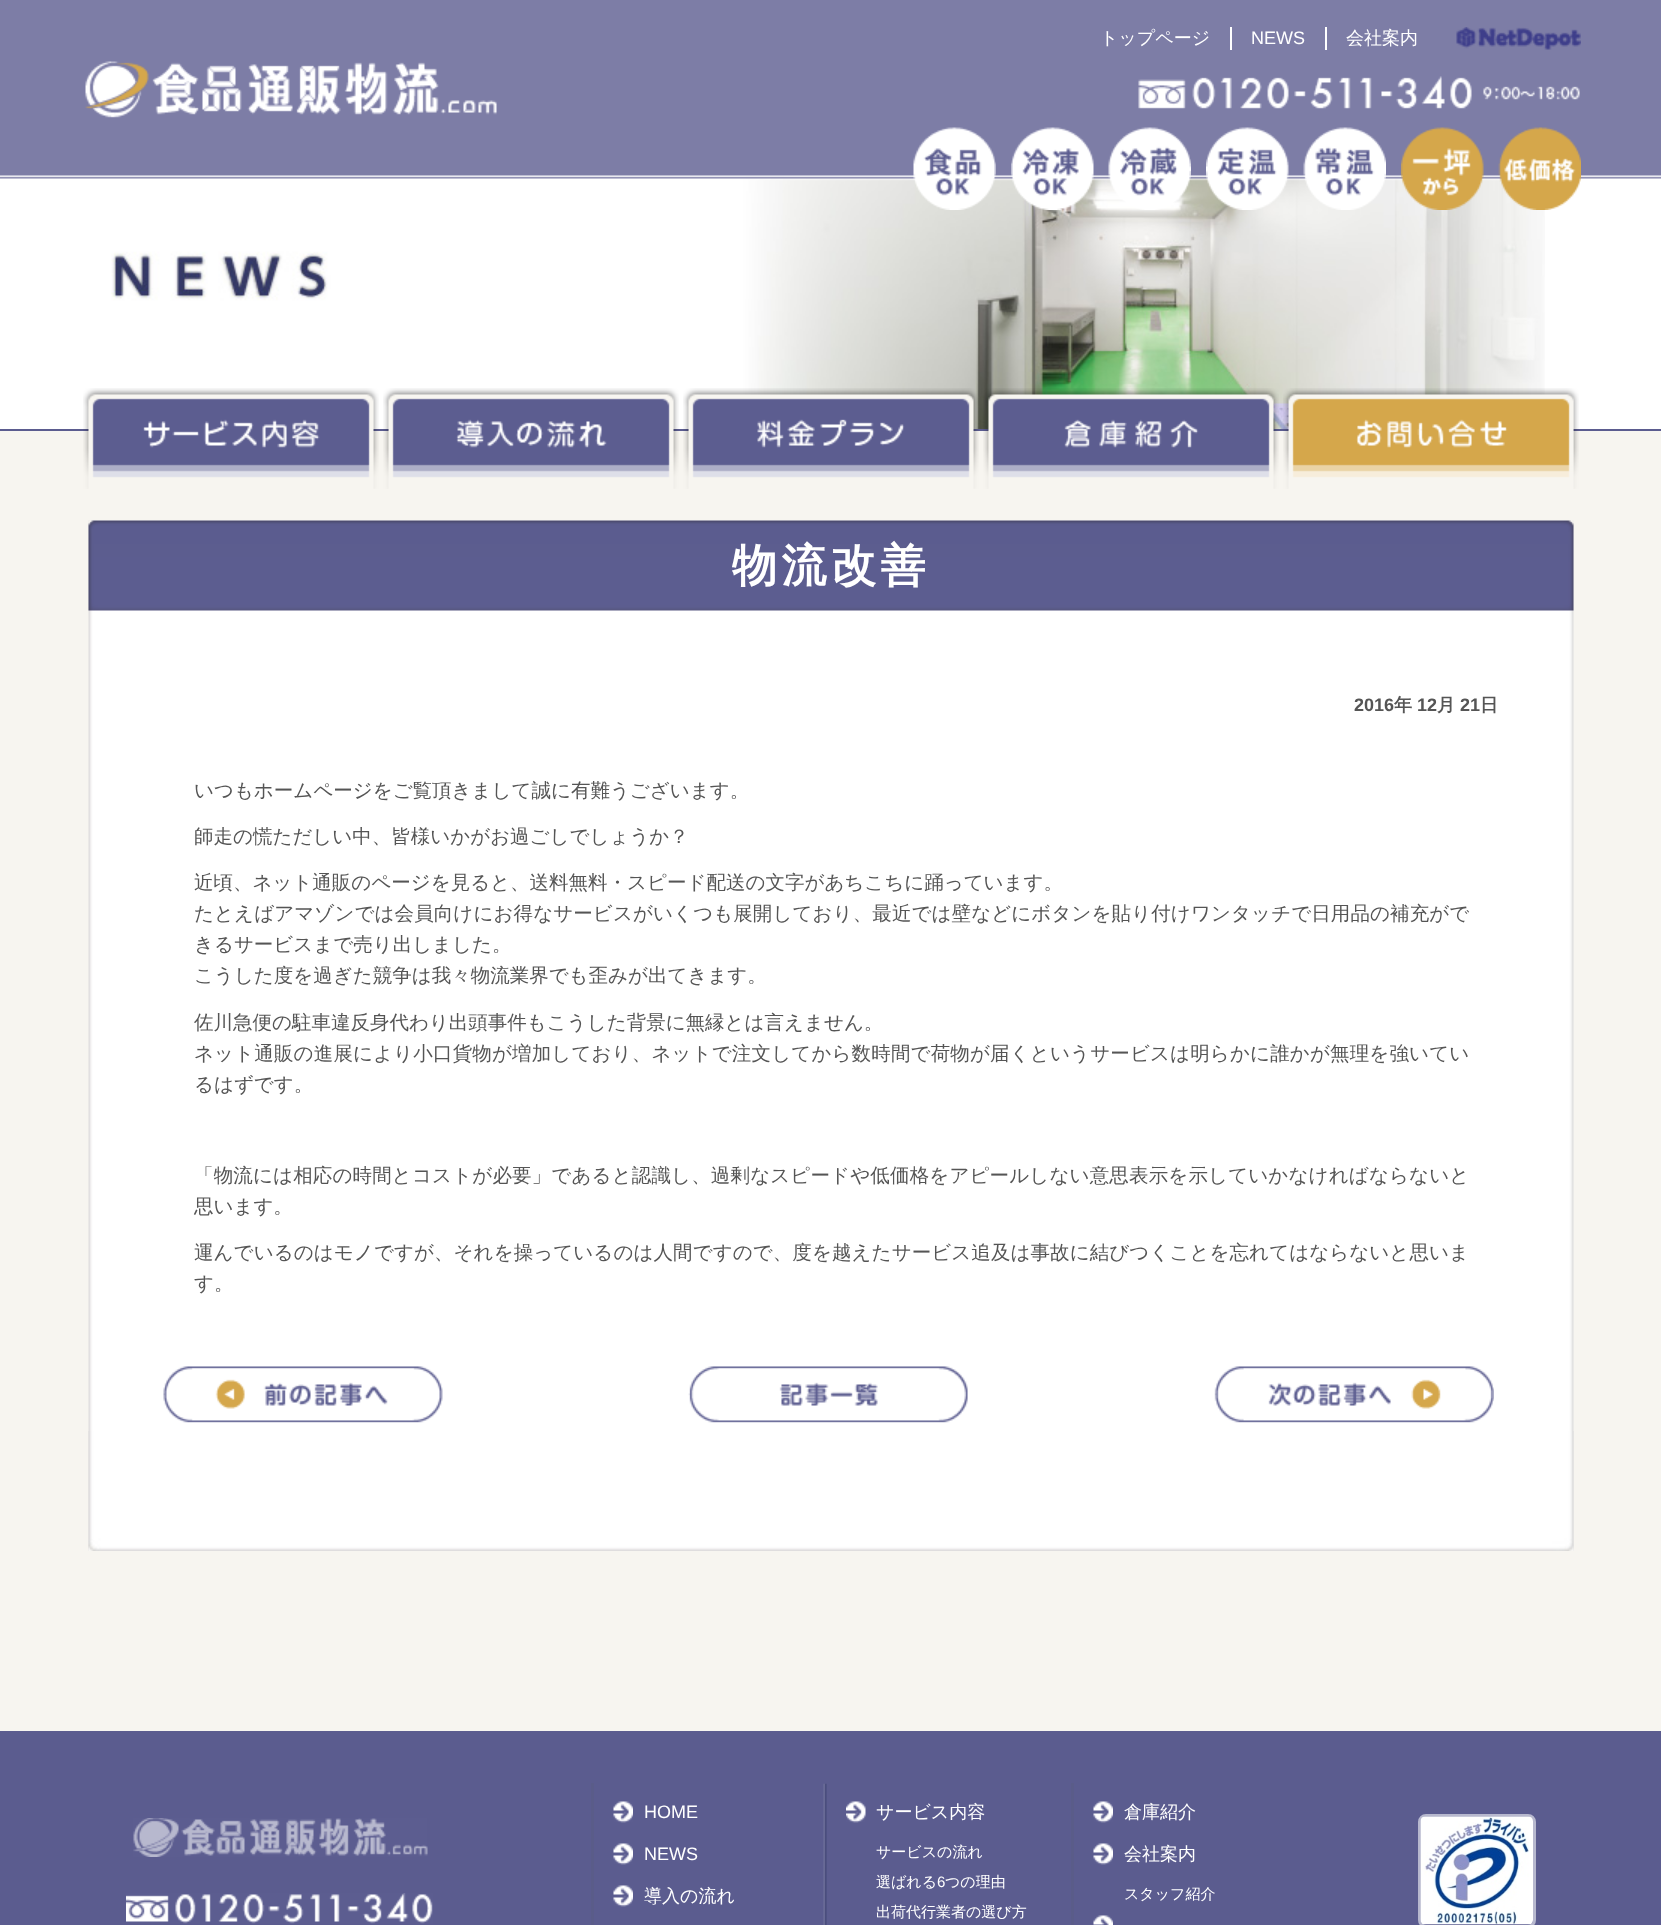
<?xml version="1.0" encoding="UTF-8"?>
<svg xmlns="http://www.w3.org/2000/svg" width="1661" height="1925">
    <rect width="100%" height="100%" fill="#FFFFFF"/>
    <image x="111" y="176" width="1434" height="253" href="img_01.png"/>
    <image x="0" y="0" width="1661" height="179" href="img_02.png"/>
    <text x="1100" y="44" font-family="WenQuanYi Zen Hei" font-size="18" font-weight="500" fill="#FFFFFF">トップページ</text>
    <rect x="1230" y="27" width="2" height="23" fill="#FFFFFF"/>
    <text x="1251" y="44" font-family="Liberation Sans" font-size="18" fill="#FFFFFF">NEWS</text>
    <rect x="1325" y="27" width="2" height="23" fill="#FFFFFF"/>
    <text x="1346" y="44" font-family="WenQuanYi Zen Hei" font-size="18" font-weight="500" fill="#FFFFFF">会社案内</text>
    <image x="1456" y="27" width="125" height="23" href="img_03.png"/>
    <image x="1138" y="76" width="442" height="33" href="img_04.png"/>
    <image x="913" y="127" width="83" height="83" href="img_05.png"/>
    <image x="1011" y="127" width="83" height="83" href="img_06.png"/>
    <image x="1108" y="127" width="83" height="83" href="img_07.png"/>
    <image x="1206" y="127" width="83" height="83" href="img_08.png"/>
    <image x="1303" y="127" width="83" height="83" href="img_09.png"/>
    <image x="1401" y="127" width="83" height="83" href="img_10.png"/>
    <image x="1498" y="127" width="83" height="83" href="img_11.png"/>
    <image x="85" y="61" width="412" height="57" href="img_12.png"/>
    <rect x="0" y="431" width="1661" height="1300" fill="#F7F5F0"/>
    <rect x="0" y="429" width="1661" height="2" fill="#5B5C8F"/>
    <image x="83" y="388" width="296" height="101" href="img_13.png"/>
    <image x="383" y="388" width="296" height="101" href="img_14.png"/>
    <image x="683" y="388" width="296" height="101" href="img_15.png"/>
    <image x="983" y="388" width="296" height="101" href="img_16.png"/>
    <image x="1283" y="388" width="296" height="101" href="img_17.png"/>
    <image x="88" y="520" width="1486" height="1031" href="img_18.png"/>
    <image x="88" y="1431" width="1486" height="120" href="img_19.png"/>
    <image x="88" y="520" width="1486" height="91" href="img_20.png"/>
    <text x="732" y="581" font-family="WenQuanYi Zen Hei" font-size="45" font-weight="700" letter-spacing="4.5" fill="#FFFFFF">物流改善</text>
    <text x="1354" y="711" font-family="Liberation Sans" font-size="18" font-weight="700" fill="#555555">2016</text>
    <text x="1394" y="711" font-family="WenQuanYi Zen Hei" font-size="18" font-weight="700" fill="#555555">年</text>
    <text x="1417" y="711" font-family="Liberation Sans" font-size="18" font-weight="700" fill="#555555">12</text>
    <text x="1437" y="711" font-family="WenQuanYi Zen Hei" font-size="18" font-weight="700" fill="#555555">月</text>
    <text x="1460" y="711" font-family="Liberation Sans" font-size="18" font-weight="700" fill="#555555">21</text>
    <text x="1480" y="711" font-family="WenQuanYi Zen Hei" font-size="18" font-weight="700" fill="#555555">日</text>
    <text x="194" y="797" font-family="WenQuanYi Zen Hei" font-size="19.5" font-weight="500" fill="#555555">いつもホームページをご覧頂きまして誠に有難うございます。</text>
    <text x="194" y="843" font-family="WenQuanYi Zen Hei" font-size="19.5" font-weight="500" fill="#555555">師走の慌ただしい中、皆様いかがお過ごしでしょうか？</text>
    <text x="194" y="889" font-family="WenQuanYi Zen Hei" font-size="19.5" font-weight="500" fill="#555555">近頃、ネット通販のページを見ると、送料無料・スピード配送の文字があちこちに踊っています。</text>
    <text x="194" y="920" font-family="WenQuanYi Zen Hei" font-size="19.5" font-weight="500" letter-spacing="0.1" fill="#555555">たとえばアマゾンでは会員向けにお得なサービスがいくつも展開しており、最近では壁などにボタンを貼り付けワンタッチで日用品の補充がで</text>
    <text font-family="WenQuanYi Zen Hei" font-size="19.5" font-weight="500" fill="#555555">
        <tspan x="194" y="951">きるサービスまで売り出しました。</tspan>
        <tspan x="194" y="982">こうした度を過ぎた競争は我々物流業界でも歪みが出てきます。</tspan>
    </text>
    <text x="194" y="1029" font-family="WenQuanYi Zen Hei" font-size="19.5" font-weight="500" fill="#555555">佐川急便の駐車違反身代わり出頭事件もこうした背景に無縁とは言えません。</text>
    <text x="194" y="1060" font-family="WenQuanYi Zen Hei" font-size="19.5" font-weight="500" letter-spacing="0.15" fill="#555555">ネット通販の進展により小口貨物が増加しており、ネットで注文してから数時間で荷物が届くというサービスは明らかに誰かが無理を強いてい</text>
    <text x="194" y="1091" font-family="WenQuanYi Zen Hei" font-size="19.5" font-weight="500" fill="#555555">るはずです。</text>
    <text x="194" y="1182" font-family="WenQuanYi Zen Hei" font-size="19.5" font-weight="500" letter-spacing="0.15" fill="#555555">「物流には相応の時間とコストが必要」であると認識し、過剰なスピードや低価格をアピールしない意思表示を示していかなければならないと</text>
    <text x="194" y="1213" font-family="WenQuanYi Zen Hei" font-size="19.5" font-weight="500" fill="#555555">思います。</text>
    <text x="194" y="1259" font-family="WenQuanYi Zen Hei" font-size="19.5" font-weight="500" letter-spacing="0.08" fill="#555555">運んでいるのはモノですが、それを操っているのは人間ですので、度を越えたサービス追及は事故に結びつくことを忘れてはならないと思いま</text>
    <text x="194" y="1290" font-family="WenQuanYi Zen Hei" font-size="19.5" font-weight="500" fill="#555555">す。</text>
    <image x="163" y="1366" width="280" height="57" href="img_21.png"/>
    <image x="688" y="1366" width="280" height="57" href="img_22.png"/>
    <image x="1214" y="1366" width="280" height="57" href="img_23.png"/>
    <rect x="0" y="1731" width="1661" height="194" fill="#5B5C8F"/>
    <image x="133" y="1818" width="295" height="39" href="img_24.png"/>
    <image x="126" y="1893" width="307" height="31" href="img_25.png"/>
    <rect x="591" y="1783" width="3" height="142" fill="#5A5C89"/>
    <image x="613" y="1801" width="20" height="22" href="img_26.png"/>
    <text x="644" y="1818" font-family="Liberation Sans" font-size="18" fill="#FFFFFF">HOME</text>
    <image x="613" y="1843" width="20" height="22" href="img_26.png"/>
    <text x="644" y="1860" font-family="Liberation Sans" font-size="18" fill="#FFFFFF">NEWS</text>
    <image x="613" y="1885" width="20" height="22" href="img_26.png"/>
    <text x="644" y="1902" font-family="WenQuanYi Zen Hei" font-size="18" font-weight="500" fill="#FFFFFF">導入の流れ</text>
    <image x="823" y="1783" width="4" height="142" href="img_27.png"/>
    <image x="846" y="1801" width="20" height="22" href="img_28.png"/>
    <text x="876" y="1818" font-family="WenQuanYi Zen Hei" font-size="18" font-weight="500" fill="#FFFFFF">サービス内容</text>
    <text x="876" y="1857" font-family="WenQuanYi Zen Hei" font-size="15" font-weight="500" fill="#FFFFFF">サービスの流れ</text>
    <text x="876" y="1887" font-family="WenQuanYi Zen Hei" font-size="15" font-weight="500" fill="#FFFFFF">選ばれる</text>
    <text x="937" y="1887" font-family="Liberation Sans" font-size="15" fill="#FFFFFF">6</text>
    <text x="945" y="1887" font-family="WenQuanYi Zen Hei" font-size="15" font-weight="500" fill="#FFFFFF">つの理由</text>
    <text x="876" y="1917" font-family="WenQuanYi Zen Hei" font-size="15" font-weight="500" fill="#FFFFFF">出荷代行業者の選び方</text>
    <rect x="1071" y="1783" width="3" height="142" fill="#5A5C89"/>
    <image x="1093" y="1801" width="20" height="22" href="img_29.png"/>
    <text x="1124" y="1818" font-family="WenQuanYi Zen Hei" font-size="18" font-weight="500" fill="#FFFFFF">倉庫紹介</text>
    <image x="1093" y="1843" width="20" height="22" href="img_29.png"/>
    <text x="1124" y="1860" font-family="WenQuanYi Zen Hei" font-size="18" font-weight="500" fill="#FFFFFF">会社案内</text>
    <text x="1124" y="1899" font-family="WenQuanYi Zen Hei" font-size="15" font-weight="500" fill="#FFFFFF">スタッフ紹介</text>
    <image x="1093" y="1915" width="20" height="10" href="img_30.png"/>
    <rect x="1419.5" y="1815.5" width="115" height="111" rx="6.5" fill="none" stroke="#B7B8CE" stroke-width="3"/>
    <image x="1420" y="1816" width="113" height="109" href="img_31.png"/>
</svg>
